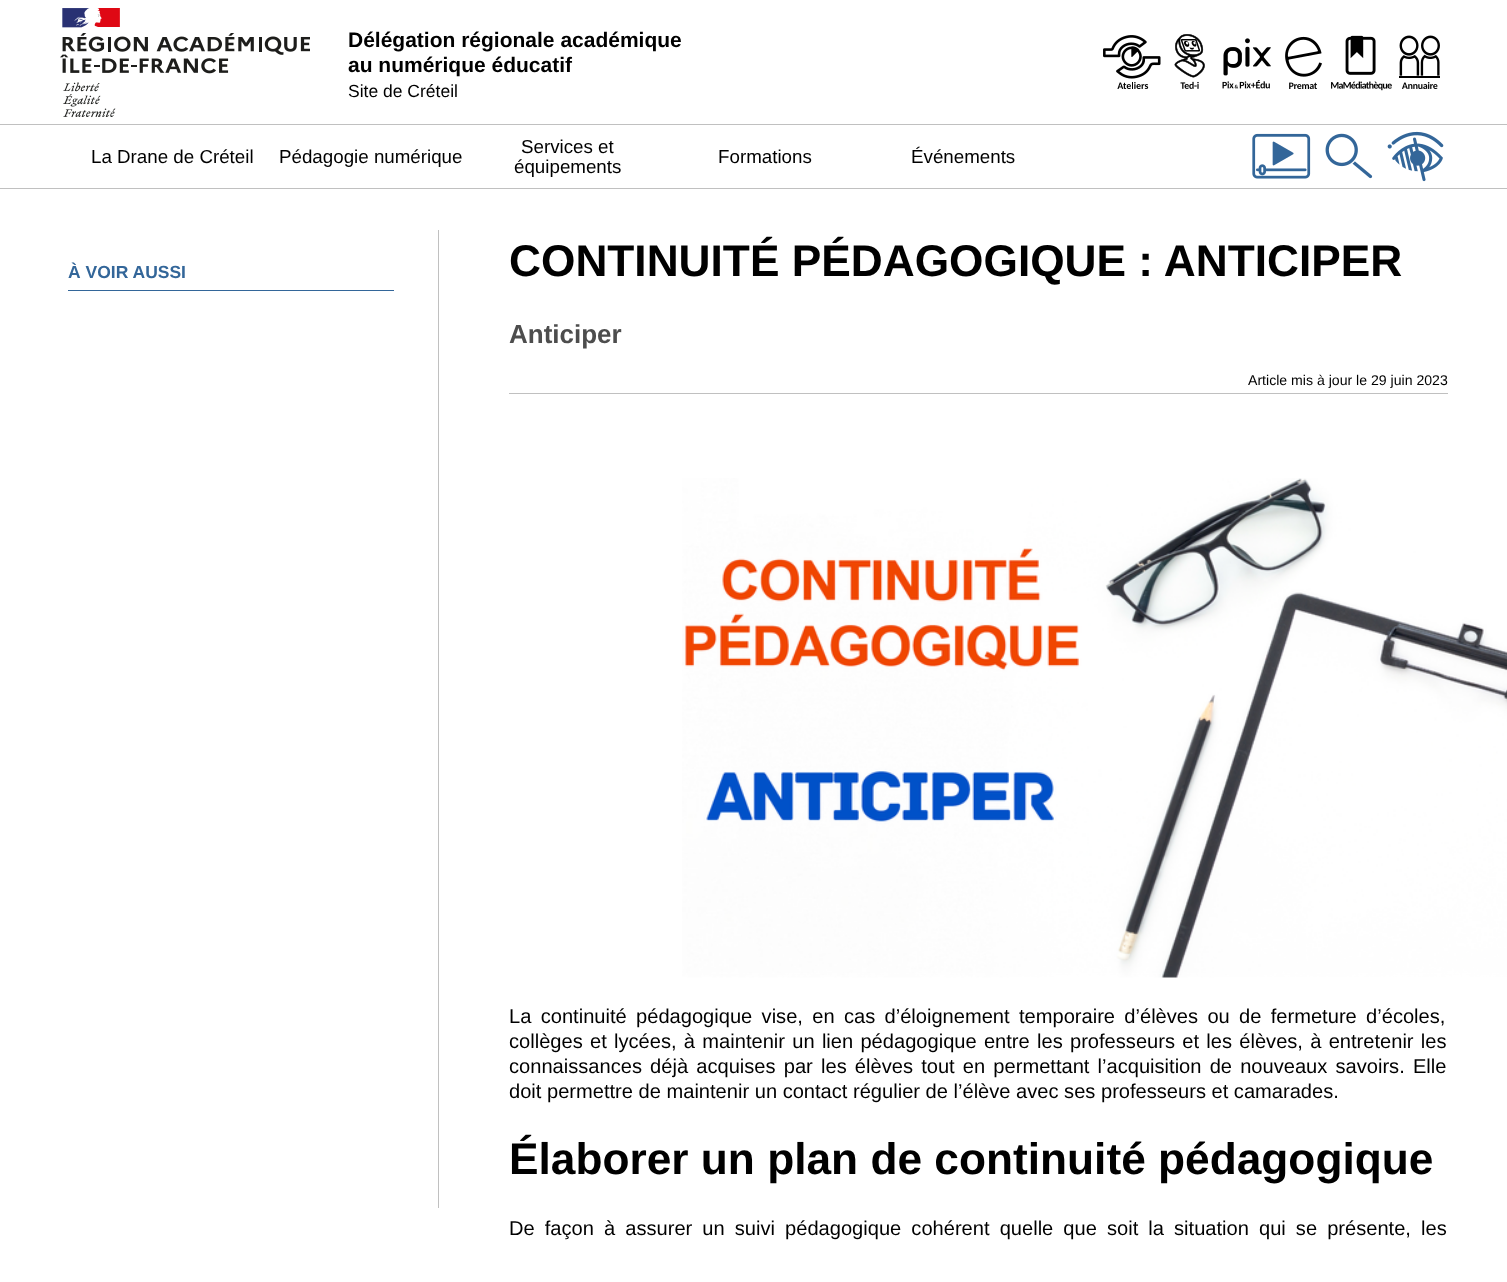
<?xml version="1.0" encoding="UTF-8"?>
<svg xmlns="http://www.w3.org/2000/svg" width="1507" height="1282">
    <rect width="100%" height="100%" fill="#FFFFFF"/>
    <image x="60" y="8" width="250" height="110" href="img_01.png"/>
    <text font-family="Liberation Sans" font-size="21" font-weight="700" fill="#000000">
        <tspan x="348" y="47">Délégation régionale académique</tspan>
        <tspan x="348" y="72">au numérique éducatif</tspan>
    </text>
    <text x="348" y="97" font-family="Liberation Sans" font-size="17.5" fill="#000000">Site de Créteil</text>
    <image x="1103" y="35" width="58" height="54" href="img_02.png"/>
    <image x="1174" y="34" width="31" height="55" href="img_03.png"/>
    <image x="1222" y="38" width="49" height="51" href="img_04.png"/>
    <image x="1285" y="36" width="37" height="53" href="img_05.png"/>
    <image x="1331" y="35" width="61" height="56" href="img_06.png"/>
    <image x="1399" y="35" width="41" height="54" href="img_07.png"/>
    <rect x="0" y="124" width="1507" height="1" fill="#C0C0C0"/>
    <rect x="0" y="188" width="1507" height="1" fill="#C0C0C0"/>
    <text x="91" y="163" font-family="Liberation Sans" font-size="18.75" fill="#000000">La Drane de Créteil</text>
    <text x="279" y="163" font-family="Liberation Sans" font-size="18.75" fill="#000000">Pédagogie numérique</text>
    <text x="521" y="153" font-family="Liberation Sans" font-size="18.75" fill="#000000">Services et</text>
    <text x="514" y="173" font-family="Liberation Sans" font-size="18.75" fill="#000000">équipements</text>
    <text x="718" y="163" font-family="Liberation Sans" font-size="18.75" fill="#000000">Formations</text>
    <text x="911" y="163" font-family="Liberation Sans" font-size="18.75" fill="#000000">Événements</text>
    <image x="1252" y="133" width="59" height="46" href="img_08.png"/>
    <image x="1325" y="133" width="48" height="46" href="img_09.png"/>
    <image x="1387" y="131" width="57" height="51" href="img_10.png"/>
    <rect x="438" y="230" width="1" height="978" fill="#C0C0C0"/>
    <rect x="68" y="290" width="326" height="1" fill="#336699"/>
    <text x="68" y="278" font-family="Liberation Sans" font-size="17.5" font-weight="700" fill="#336699">À VOIR AUSSI</text>
    <text x="509" y="276" font-family="Liberation Sans" font-size="44.25" font-weight="700" fill="#000000">CONTINUITÉ PÉDAGOGIQUE : ANTICIPER</text>
    <text x="509" y="343" font-family="Liberation Sans" font-size="26" font-weight="700" fill="#4D4D4D">Anticiper</text>
    <rect x="509" y="393" width="939" height="1" fill="#C0C0C0"/>
    <text x="1248" y="385" font-family="Liberation Sans" font-size="14.1" fill="#000000">Article mis à jour le 29 juin 2023</text>
    <image x="682" y="478" width="825" height="500" href="img_11.png"/>
    <text font-family="Liberation Sans" font-size="20.1" fill="#000000">
        <tspan x="509" y="1023" word-spacing="3.75">La continuité pédagogique vise, en cas d’éloignement temporaire d’élèves ou de fermeture d’écoles,</tspan>
        <tspan x="509" y="1048" word-spacing="1.7">collèges et lycées, à maintenir un lien pédagogique entre les professeurs et les élèves, à entretenir les</tspan>
        <tspan x="509" y="1073" word-spacing="2.6">connaissances déjà acquises par les élèves tout en permettant l’acquisition de nouveaux savoirs. Elle</tspan>
        <tspan x="509" y="1098">doit permettre de maintenir un contact régulier de l’élève avec ses professeurs et camarades.</tspan>
    </text>
    <text x="509" y="1174" font-family="Liberation Sans" font-size="44.25" font-weight="700" fill="#000000">Élaborer un plan de continuité pédagogique</text>
    <text x="509" y="1235" word-spacing="4.5" font-family="Liberation Sans" font-size="20.1" fill="#000000">De façon à assurer un suivi pédagogique cohérent quelle que soit la situation qui se présente, les</text>
</svg>
